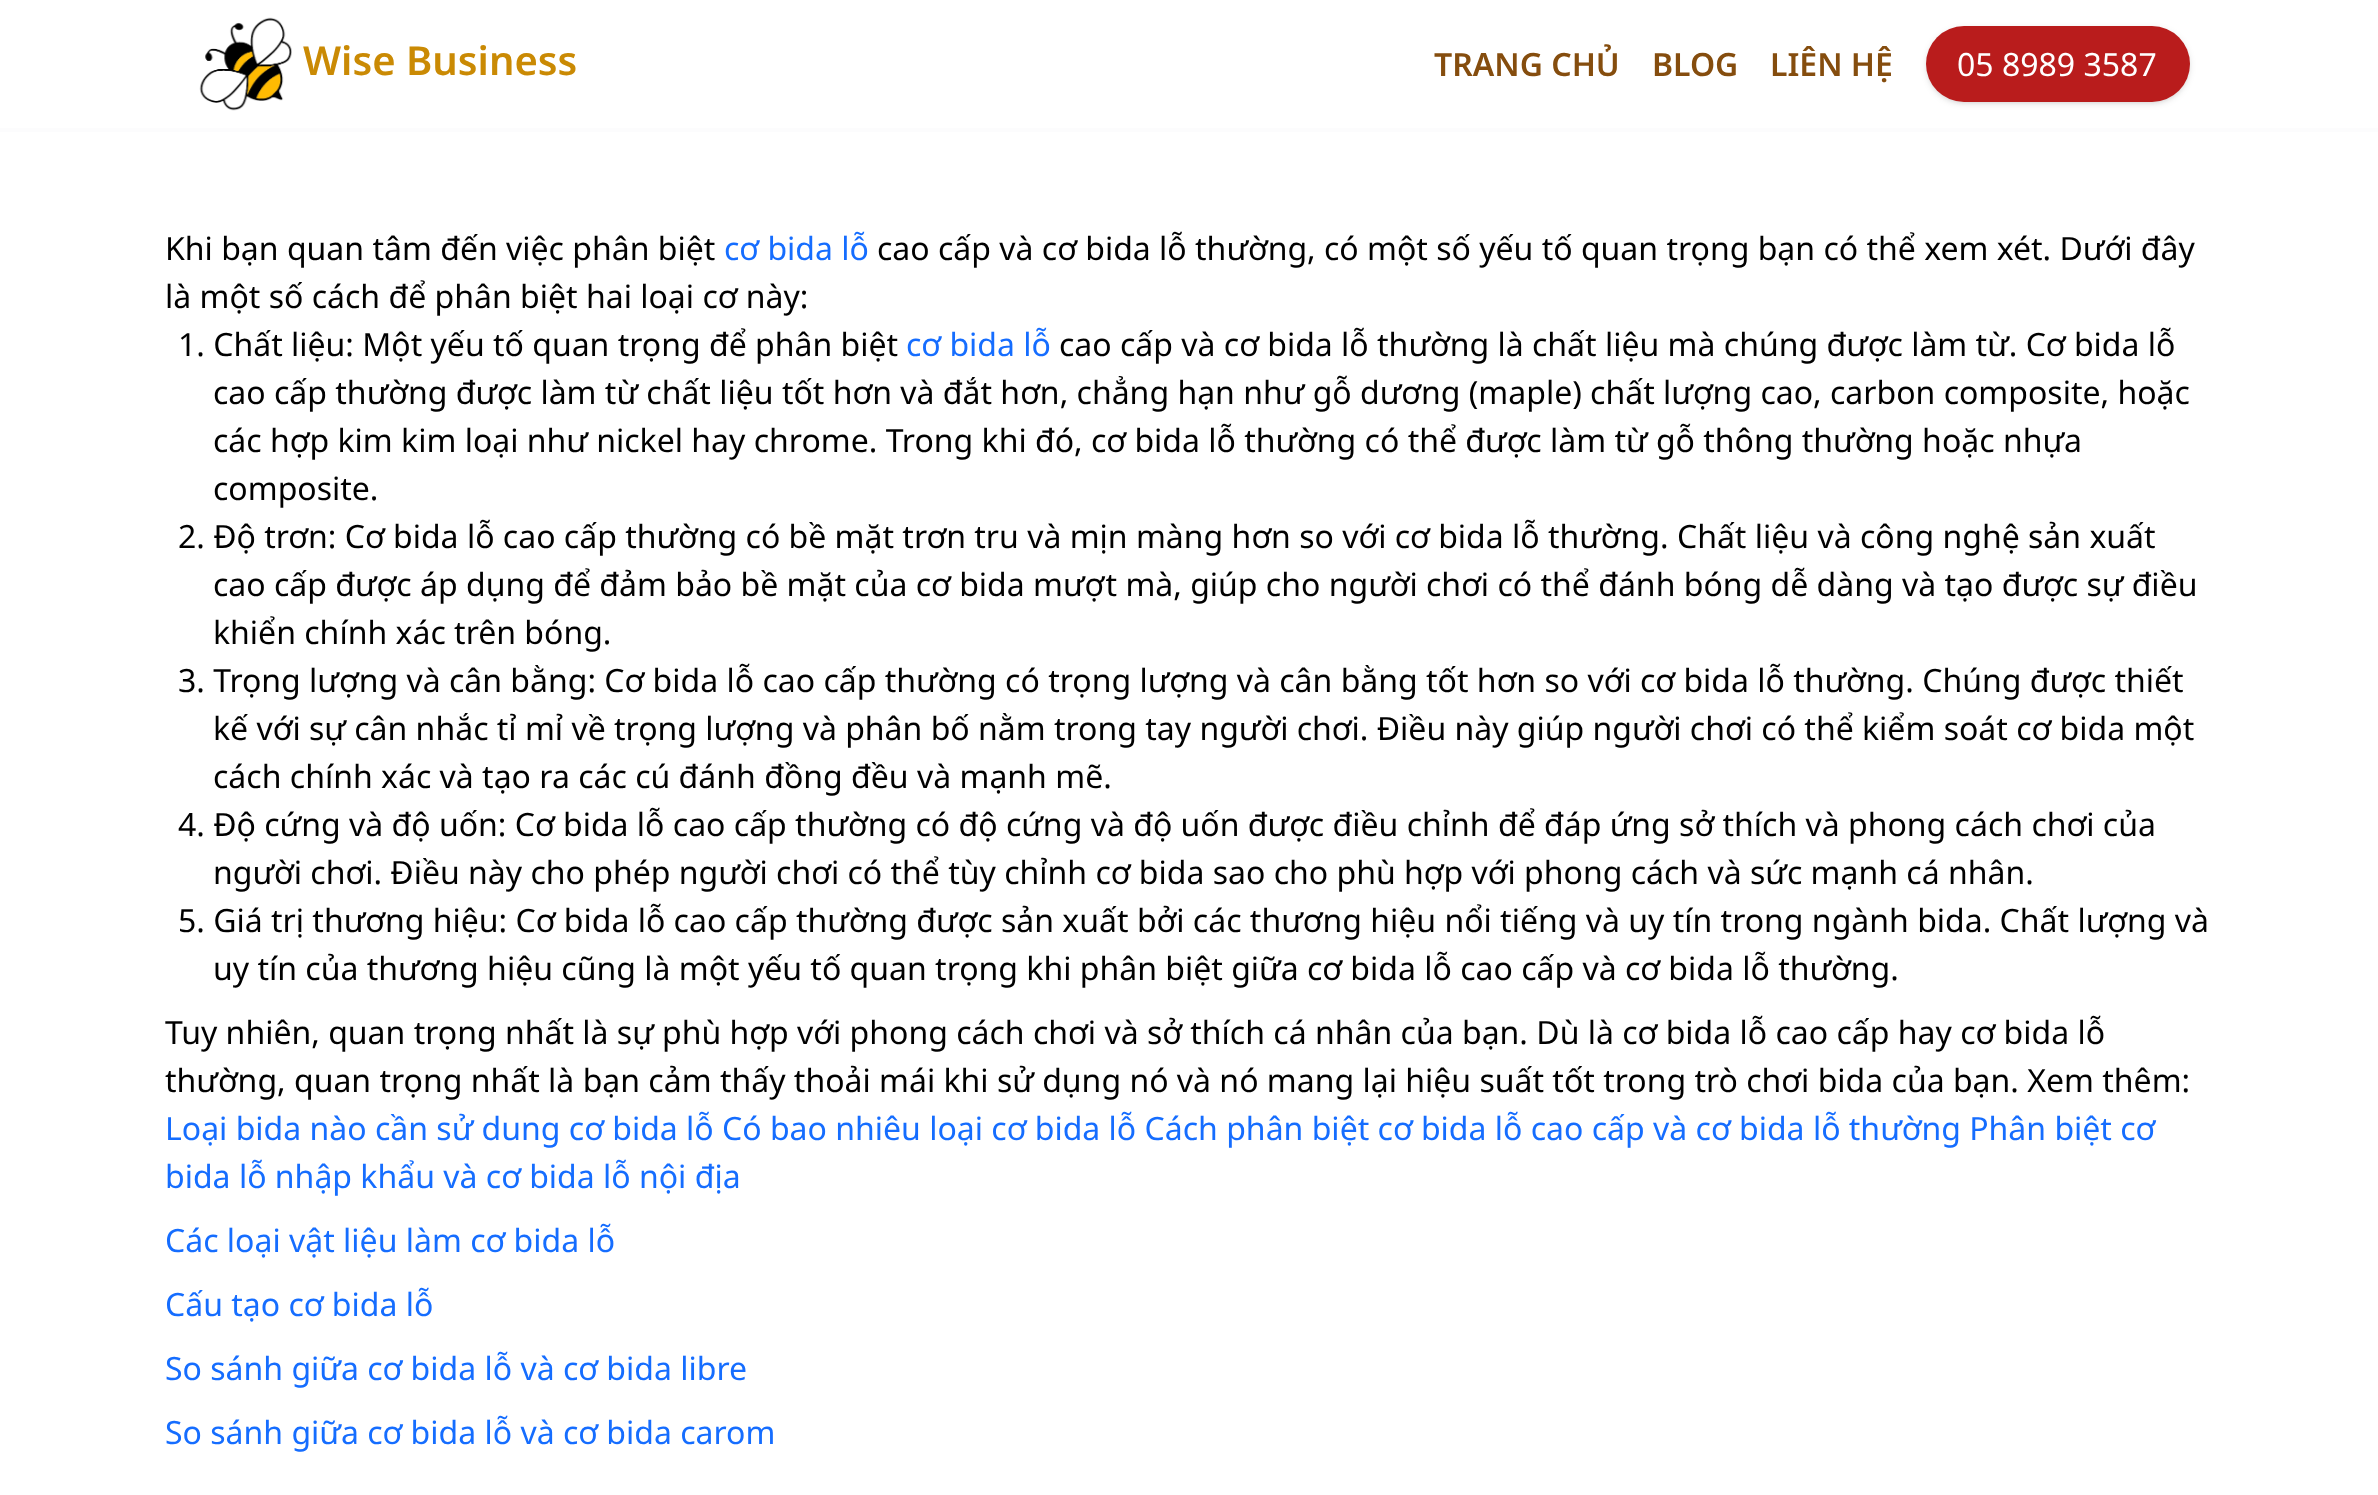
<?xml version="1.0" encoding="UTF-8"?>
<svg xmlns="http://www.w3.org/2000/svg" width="2378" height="1495">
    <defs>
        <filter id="blur1" x="-50%" y="-200%" width="200%" height="500%"><feGaussianBlur stdDeviation="2"/></filter>
        <filter id="blur2" x="-50%" y="-200%" width="200%" height="500%"><feGaussianBlur stdDeviation="3"/></filter>
    </defs>
    <rect width="100%" height="100%" fill="#FFFFFF"/>
    <image x="199" y="17" width="93" height="94" href="img_01.png"/>
    <text x="303" y="75" font-family="Noto Sans" font-size="40" font-weight="600" fill="#CA8A04">Wise Business</text>
    <text x="1434" y="76" font-family="Noto Sans" font-size="32" font-weight="600" fill="#854D0E">TRANG CHỦ</text>
    <text x="1652" y="76" font-family="Noto Sans" font-size="32" font-weight="600" fill="#854D0E">BLOG</text>
    <text x="1770" y="76" font-family="Noto Sans" font-size="32" font-weight="600" fill="#854D0E">LIÊN HỆ</text>
    <rect x="1928" y="30" width="260" height="72" rx="36" fill="#000000" fill-opacity="0.1" filter="url(#blur1)"/>
    <rect x="1926" y="28" width="264" height="76" rx="38" fill="#000000" fill-opacity="0.1" filter="url(#blur2)"/>
    <rect x="1926" y="26" width="264" height="76" rx="38" fill="#B91C1C"/>
    <text x="1957" y="76" font-family="Noto Sans" font-size="32" fill="#FFFFFF">05 8989 3587</text>
    <rect x="0" y="128" width="2378" height="4" fill="#FCFCFD"/>
    <text x="165" y="260" font-family="Noto Sans" font-size="32" fill="#000000">Khi bạn quan tâm đến việc phân biệt</text>
    <text x="724" y="260" font-family="Noto Sans" font-size="32" fill="#156DFF">cơ bida lỗ</text>
    <text x="877" y="260" font-family="Noto Sans" font-size="32" fill="#000000">cao cấp và cơ bida lỗ thường, có một số yếu tố quan trọng bạn có thể xem xét. Dưới đây</text>
    <text x="165" y="308" font-family="Noto Sans" font-size="32" fill="#000000">là một số cách để phân biệt hai loại cơ này:</text>
    <text x="178" y="356" font-family="Noto Sans" font-size="32" fill="#000000">1. Chất liệu: Một yếu tố quan trọng để phân biệt</text>
    <text x="906" y="356" font-family="Noto Sans" font-size="32" fill="#156DFF">cơ bida lỗ</text>
    <text x="1059" y="356" font-family="Noto Sans" font-size="32" fill="#000000">cao cấp và cơ bida lỗ thường là chất liệu mà chúng được làm từ. Cơ bida lỗ</text>
    <text font-family="Noto Sans" font-size="32" fill="#000000">
        <tspan x="213" y="404">cao cấp thường được làm từ chất liệu tốt hơn và đắt hơn, chẳng hạn như gỗ dương (maple) chất lượng cao, carbon composite, hoặc</tspan>
        <tspan x="213" y="452">các hợp kim kim loại như nickel hay chrome. Trong khi đó, cơ bida lỗ thường có thể được làm từ gỗ thông thường hoặc nhựa</tspan>
        <tspan x="213" y="500">composite.</tspan>
    </text>
    <text x="178" y="548" font-family="Noto Sans" font-size="32" fill="#000000">2. Độ trơn: Cơ bida lỗ cao cấp thường có bề mặt trơn tru và mịn màng hơn so với cơ bida lỗ thường. Chất liệu và công nghệ sản xuất</text>
    <text font-family="Noto Sans" font-size="32" fill="#000000">
        <tspan x="213" y="596">cao cấp được áp dụng để đảm bảo bề mặt của cơ bida mượt mà, giúp cho người chơi có thể đánh bóng dễ dàng và tạo được sự điều</tspan>
        <tspan x="213" y="644">khiển chính xác trên bóng.</tspan>
    </text>
    <text x="178" y="692" font-family="Noto Sans" font-size="32" fill="#000000">3. Trọng lượng và cân bằng: Cơ bida lỗ cao cấp thường có trọng lượng và cân bằng tốt hơn so với cơ bida lỗ thường. Chúng được thiết</text>
    <text font-family="Noto Sans" font-size="32" fill="#000000">
        <tspan x="213" y="740">kế với sự cân nhắc tỉ mỉ về trọng lượng và phân bố nằm trong tay người chơi. Điều này giúp người chơi có thể kiểm soát cơ bida một</tspan>
        <tspan x="213" y="788">cách chính xác và tạo ra các cú đánh đồng đều và mạnh mẽ.</tspan>
    </text>
    <text x="178" y="836" font-family="Noto Sans" font-size="32" fill="#000000">4. Độ cứng và độ uốn: Cơ bida lỗ cao cấp thường có độ cứng và độ uốn được điều chỉnh để đáp ứng sở thích và phong cách chơi của</text>
    <text x="213" y="884" font-family="Noto Sans" font-size="32" fill="#000000">người chơi. Điều này cho phép người chơi có thể tùy chỉnh cơ bida sao cho phù hợp với phong cách và sức mạnh cá nhân.</text>
    <text x="178" y="932" font-family="Noto Sans" font-size="32" fill="#000000">5. Giá trị thương hiệu: Cơ bida lỗ cao cấp thường được sản xuất bởi các thương hiệu nổi tiếng và uy tín trong ngành bida. Chất lượng và</text>
    <text x="213" y="980" font-family="Noto Sans" font-size="32" fill="#000000">uy tín của thương hiệu cũng là một yếu tố quan trọng khi phân biệt giữa cơ bida lỗ cao cấp và cơ bida lỗ thường.</text>
    <text font-family="Noto Sans" font-size="32" fill="#000000">
        <tspan x="165" y="1044">Tuy nhiên, quan trọng nhất là sự phù hợp với phong cách chơi và sở thích cá nhân của bạn. Dù là cơ bida lỗ cao cấp hay cơ bida lỗ</tspan>
        <tspan x="165" y="1092">thường, quan trọng nhất là bạn cảm thấy thoải mái khi sử dụng nó và nó mang lại hiệu suất tốt trong trò chơi bida của bạn. Xem thêm:</tspan>
    </text>
    <text font-family="Noto Sans" font-size="32" fill="#156DFF">
        <tspan x="165" y="1140">Loại bida nào cần sử dung cơ bida lỗ Có bao nhiêu loại cơ bida lỗ Cách phân biệt cơ bida lỗ cao cấp và cơ bida lỗ thường Phân biệt cơ</tspan>
        <tspan x="165" y="1188">bida lỗ nhập khẩu và cơ bida lỗ nội địa</tspan>
    </text>
    <text x="165" y="1252" font-family="Noto Sans" font-size="32" fill="#156DFF">Các loại vật liệu làm cơ bida lỗ</text>
    <text x="165" y="1316" font-family="Noto Sans" font-size="32" fill="#156DFF">Cấu tạo cơ bida lỗ</text>
    <text x="165" y="1380" font-family="Noto Sans" font-size="32" fill="#156DFF">So sánh giữa cơ bida lỗ và cơ bida libre</text>
    <text x="165" y="1444" font-family="Noto Sans" font-size="32" fill="#156DFF">So sánh giữa cơ bida lỗ và cơ bida carom</text>
</svg>
